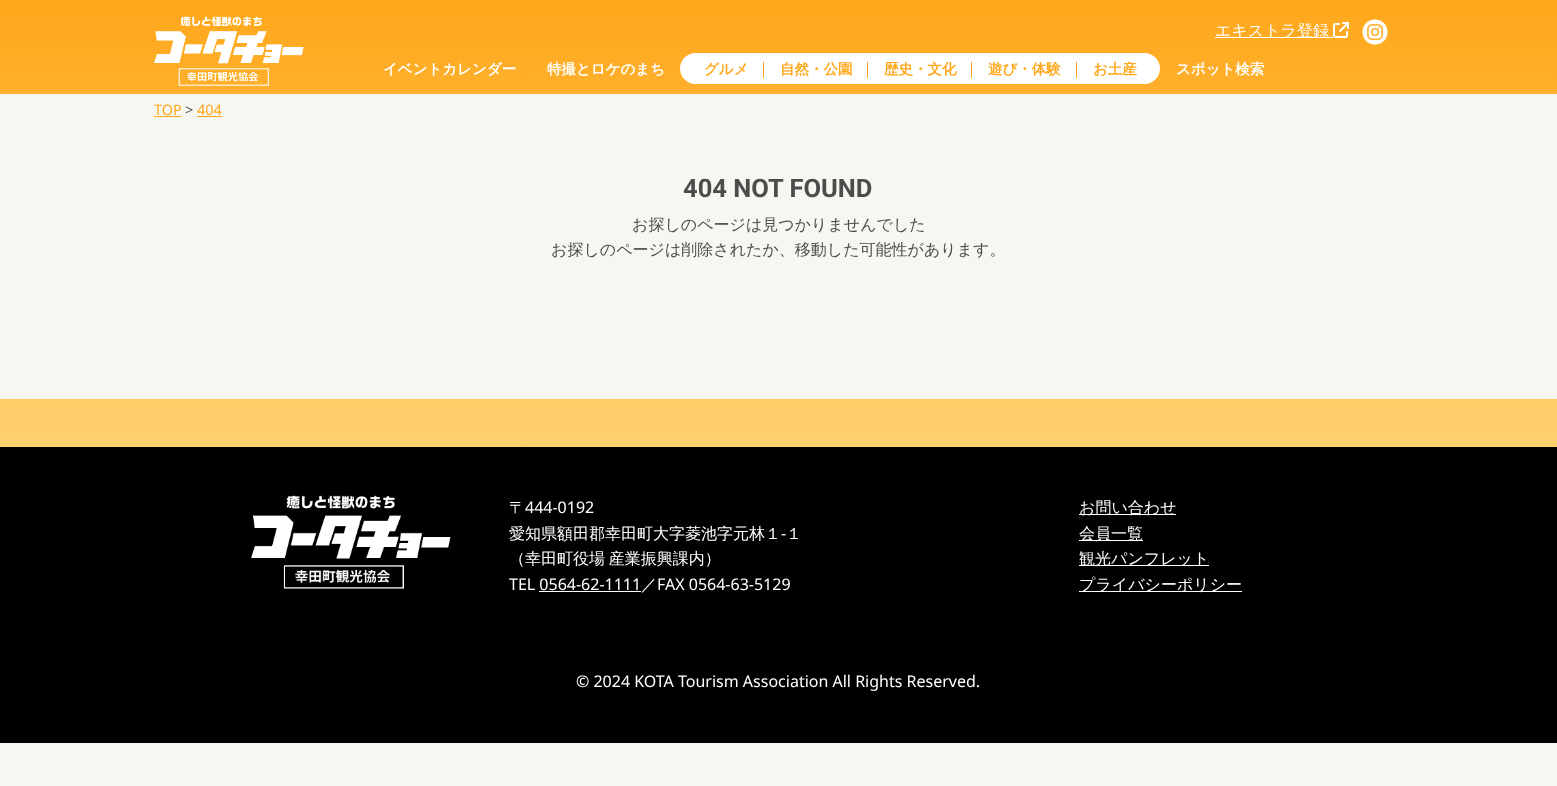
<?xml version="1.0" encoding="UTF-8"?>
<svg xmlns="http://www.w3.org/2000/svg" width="1557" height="786">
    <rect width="100%" height="100%" fill="#F7F7F2"/>
    <image x="0" y="0" width="1557" height="447" href="img_01.png"/>
    <image x="154" y="16" width="150" height="70" href="img_02.png"/>
    <rect x="1215" y="37" width="118" height="1" fill="#FFFFFF"/>
    <text x="1215" y="36" font-family="WenQuanYi Zen Hei" font-size="16" font-weight="500" fill="#FFFFFF">エキストラ登録</text>
    <image x="1333" y="22" width="16" height="16" href="img_03.png"/>
    <image x="1362" y="19" width="26" height="26" href="img_04.png"/>
    <text x="383" y="74" font-family="WenQuanYi Zen Hei" font-size="14.5" font-weight="700" fill="#FFFFFF">イベントカレンダー</text>
    <text x="547" y="74" font-family="WenQuanYi Zen Hei" font-size="14.5" font-weight="700" fill="#FFFFFF">特撮とロケのまち</text>
    <path d="M 695.5 53 H 764 V 84 H 695.5 C 687 84 680 77 680 68.5 C 680 60 687 53 695.5 53 Z" fill="#FFFFFF"/>
    <text x="704" y="74" font-family="WenQuanYi Zen Hei" font-size="14.5" font-weight="700" fill="#FFA71A">グルメ</text>
    <rect x="763" y="62" width="1" height="16" fill="#FFA71A"/>
    <rect x="764" y="53" width="313" height="31" fill="#FFFFFF"/>
    <text x="780" y="74" font-family="WenQuanYi Zen Hei" font-size="14.5" font-weight="700" fill="#FFA71A">自然・公園</text>
    <rect x="867" y="62" width="1" height="16" fill="#FFA71A"/>
    <text x="884" y="74" font-family="WenQuanYi Zen Hei" font-size="14.5" font-weight="700" fill="#FFA71A">歴史・文化</text>
    <rect x="971" y="62" width="1" height="16" fill="#FFA71A"/>
    <text x="988" y="74" font-family="WenQuanYi Zen Hei" font-size="14.5" font-weight="700" fill="#FFA71A">遊び・体験</text>
    <rect x="1076" y="62" width="1" height="16" fill="#FFA71A"/>
    <path d="M 1077 53 H 1144.5 C 1153 53 1160 60 1160 68.5 C 1160 77 1153 84 1144.5 84 H 1077 Z" fill="#FFFFFF"/>
    <text x="1093" y="74" font-family="WenQuanYi Zen Hei" font-size="14.5" font-weight="700" fill="#FFA71A">お土産</text>
    <text x="1176" y="74" font-family="WenQuanYi Zen Hei" font-size="14.5" font-weight="700" fill="#FFFFFF">スポット検索</text>
    <rect x="0" y="94" width="1557" height="305" fill="#F7F7F2"/>
    <text x="154" y="115" font-family="Noto Sans" font-size="14.5" fill="#FFA71A">TOP</text>
    <rect x="154" y="116" width="27" height="1" fill="#FFA71A"/>
    <text x="185" y="115" font-family="Noto Sans" font-size="14.5" fill="#4C4C4C">&gt;</text>
    <text x="197" y="115" font-family="Noto Sans" font-size="14.5" fill="#FFA71A">404</text>
    <rect x="197" y="116" width="25" height="1" fill="#FFA71A"/>
    <text x="683" y="197" font-family="Roboto" font-size="25.5" font-weight="700" fill="#4C4C4C">404 NOT FOUND</text>
    <text x="632" y="230" font-family="WenQuanYi Zen Hei" font-size="16" font-weight="500" fill="#4C4C4C">お探しのページは見つかりませんでした</text>
    <text x="551" y="255" font-family="WenQuanYi Zen Hei" font-size="16" font-weight="500" fill="#4C4C4C">お探しのページは削除されたか、移動した可能性があります。</text>
    <rect x="0" y="447" width="1557" height="296" fill="#000000"/>
    <image x="251" y="495" width="200" height="94" href="img_05.png"/>
    <text x="509" y="513" font-family="WenQuanYi Zen Hei" font-size="16" font-weight="500" fill="#FFFFFF">〒</text>
    <text x="525" y="513" font-family="Noto Sans" font-size="16" fill="#FFFFFF">444-0192</text>
    <text x="509" y="539" font-family="WenQuanYi Zen Hei" font-size="16" font-weight="500" fill="#FFFFFF">愛知県額田郡幸田町大字菱池字元林１</text>
    <text x="781" y="539" font-family="Noto Sans" font-size="16" fill="#FFFFFF">-</text>
    <text x="786" y="539" font-family="WenQuanYi Zen Hei" font-size="16" font-weight="500" fill="#FFFFFF">１</text>
    <text x="509" y="564" word-spacing="-1" font-family="WenQuanYi Zen Hei" font-size="16" font-weight="500" fill="#FFFFFF">（幸田町役場 産業振興課内）</text>
    <text x="509" y="590" font-family="Noto Sans" font-size="16" fill="#FFFFFF">TEL 0564-62-1111</text>
    <text x="641" y="590" font-family="WenQuanYi Zen Hei" font-size="16" font-weight="500" fill="#FFFFFF">／</text>
    <text x="657" y="590" font-family="Noto Sans" font-size="16" fill="#FFFFFF">FAX 0564-63-5129</text>
    <rect x="539" y="591" width="102" height="1" fill="#FFFFFF"/>
    <rect x="1079" y="514" width="97" height="1" fill="#FFFFFF"/>
    <text x="1079" y="513" font-family="WenQuanYi Zen Hei" font-size="16" font-weight="500" fill="#FFFFFF">お問い合わせ</text>
    <rect x="1079" y="540" width="64" height="1" fill="#FFFFFF"/>
    <text x="1079" y="539" font-family="WenQuanYi Zen Hei" font-size="16" font-weight="500" fill="#FFFFFF">会員一覧</text>
    <rect x="1079" y="565" width="130" height="1" fill="#FFFFFF"/>
    <text x="1079" y="564" font-family="WenQuanYi Zen Hei" font-size="16" font-weight="500" fill="#FFFFFF">観光パンフレット</text>
    <rect x="1079" y="591" width="163" height="1" fill="#FFFFFF"/>
    <text x="1079" y="590" font-family="WenQuanYi Zen Hei" font-size="16" font-weight="500" fill="#FFFFFF">プライバシーポリシー</text>
    <text x="576" y="687" font-family="Noto Sans" font-size="16" fill="#FFFFFF">© 2024 KOTA Tourism Association All Rights Reserved.</text>
</svg>
